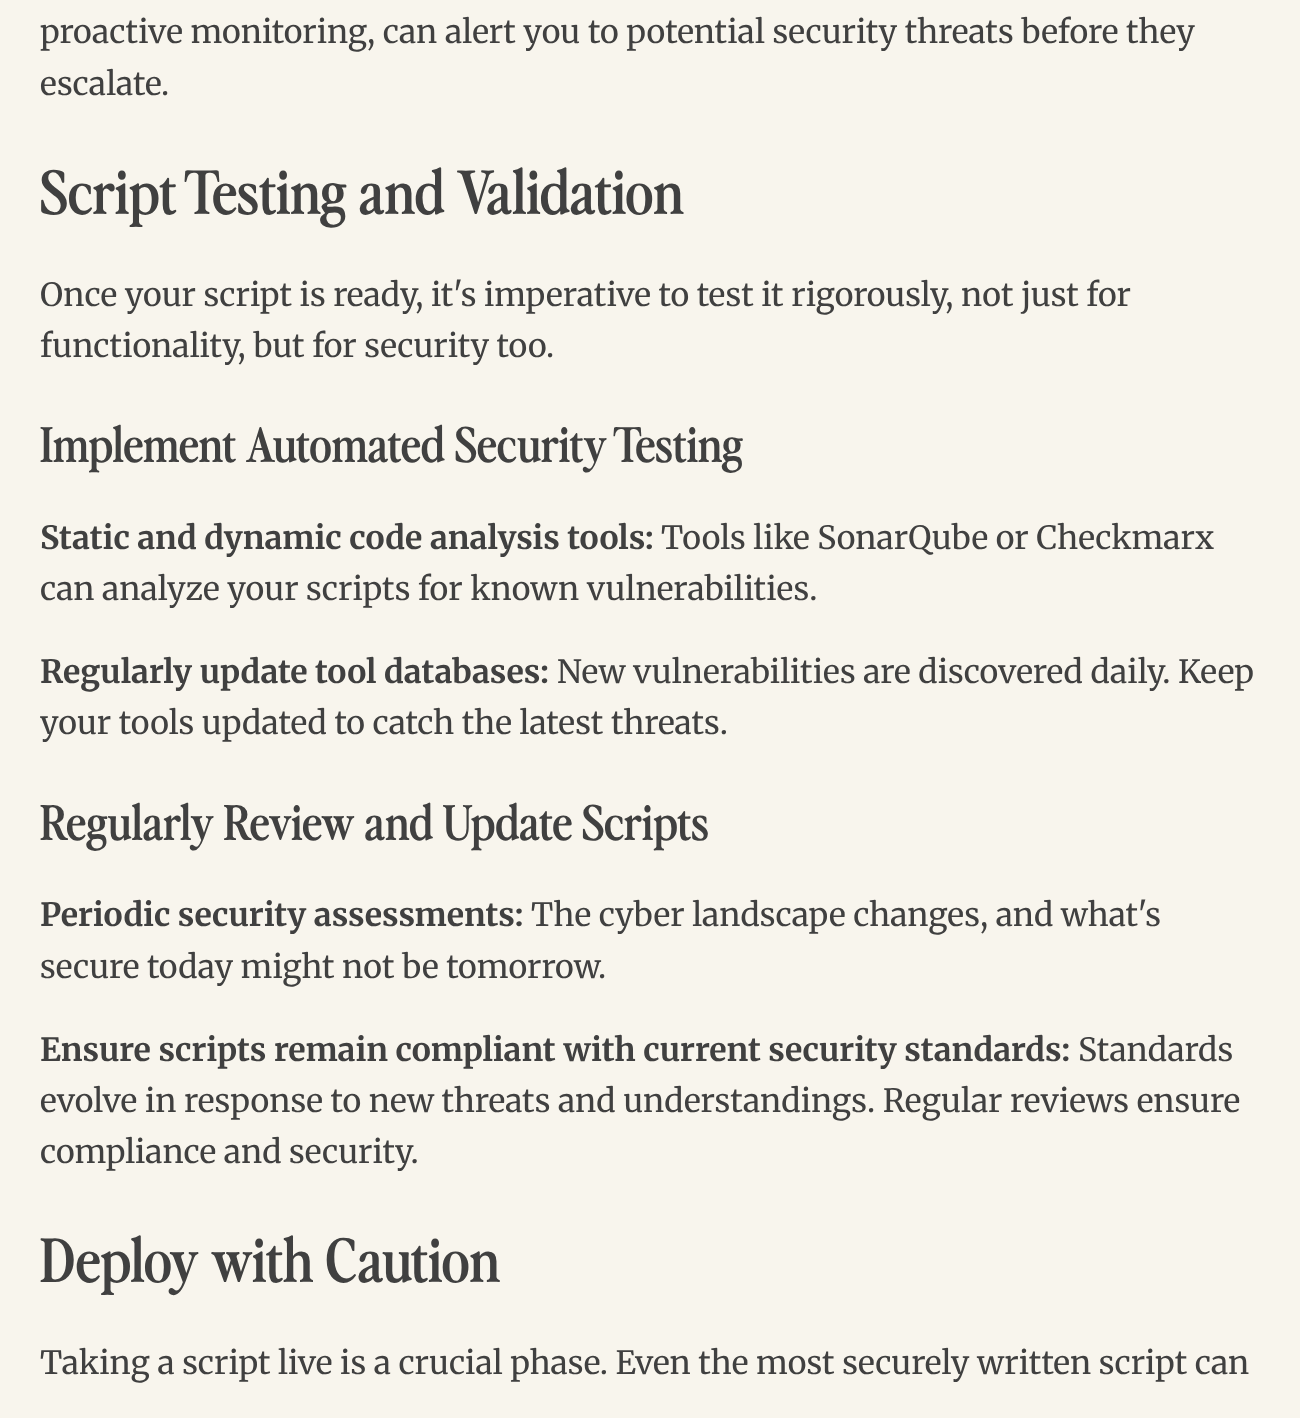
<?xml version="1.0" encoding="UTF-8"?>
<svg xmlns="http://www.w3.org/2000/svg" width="1300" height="1418">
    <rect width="100%" height="100%" fill="#F8F5ED"/>
    <text font-family="Merriweather" font-size="32" fill="#404040">
        <tspan x="40" y="43">proactive monitoring, can alert you to potential security threats before they</tspan>
        <tspan x="40" y="95">escalate.</tspan>
    </text>
    <text x="40" y="214" font-family="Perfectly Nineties" font-size="60" font-weight="600" fill="#404040">Script Testing and Validation</text>
    <text font-family="Merriweather" font-size="32" fill="#404040">
        <tspan x="40" y="306">Once your script is ready, it's imperative to test it rigorously, not just for</tspan>
        <tspan x="40" y="357">functionality, but for security too.</tspan>
    </text>
    <text x="40" y="462" font-family="Perfectly Nineties" font-size="48" font-weight="600" fill="#404040">Implement Automated Security Testing</text>
    <text x="40" y="549" font-family="Merriweather" font-size="32" font-weight="700" fill="#404040">Static and dynamic code analysis tools:</text>
    <text x="661" y="549" font-family="Merriweather" font-size="32" fill="#404040">Tools like SonarQube or Checkmarx</text>
    <text x="40" y="600" font-family="Merriweather" font-size="32" fill="#404040">can analyze your scripts for known vulnerabilities.</text>
    <text x="40" y="683" font-family="Merriweather" font-size="32" font-weight="700" fill="#404040">Regularly update tool databases:</text>
    <text x="557" y="683" font-family="Merriweather" font-size="32" fill="#404040">New vulnerabilities are discovered daily. Keep</text>
    <text x="40" y="734" font-family="Merriweather" font-size="32" fill="#404040">your tools updated to catch the latest threats.</text>
    <text x="40" y="840" font-family="Perfectly Nineties" font-size="48" font-weight="600" fill="#404040">Regularly Review and Update Scripts</text>
    <text x="40" y="926" font-family="Merriweather" font-size="32" font-weight="700" fill="#404040">Periodic security assessments:</text>
    <text x="531" y="926" font-family="Merriweather" font-size="32" fill="#404040">The cyber landscape changes, and what's</text>
    <text x="40" y="978" font-family="Merriweather" font-size="32" fill="#404040">secure today might not be tomorrow.</text>
    <text x="40" y="1061" font-family="Merriweather" font-size="32" font-weight="700" fill="#404040">Ensure scripts remain compliant with current security standards:</text>
    <text x="1078" y="1061" font-family="Merriweather" font-size="32" fill="#404040">Standards</text>
    <text font-family="Merriweather" font-size="32" fill="#404040">
        <tspan x="40" y="1112">evolve in response to new threats and understandings. Regular reviews ensure</tspan>
        <tspan x="40" y="1163">compliance and security.</tspan>
    </text>
    <text x="40" y="1282" font-family="Perfectly Nineties" font-size="60" font-weight="600" fill="#404040">Deploy with Caution</text>
    <text x="40" y="1374" font-family="Merriweather" font-size="32" fill="#404040">Taking a script live is a crucial phase. Even the most securely written script can</text>
</svg>
